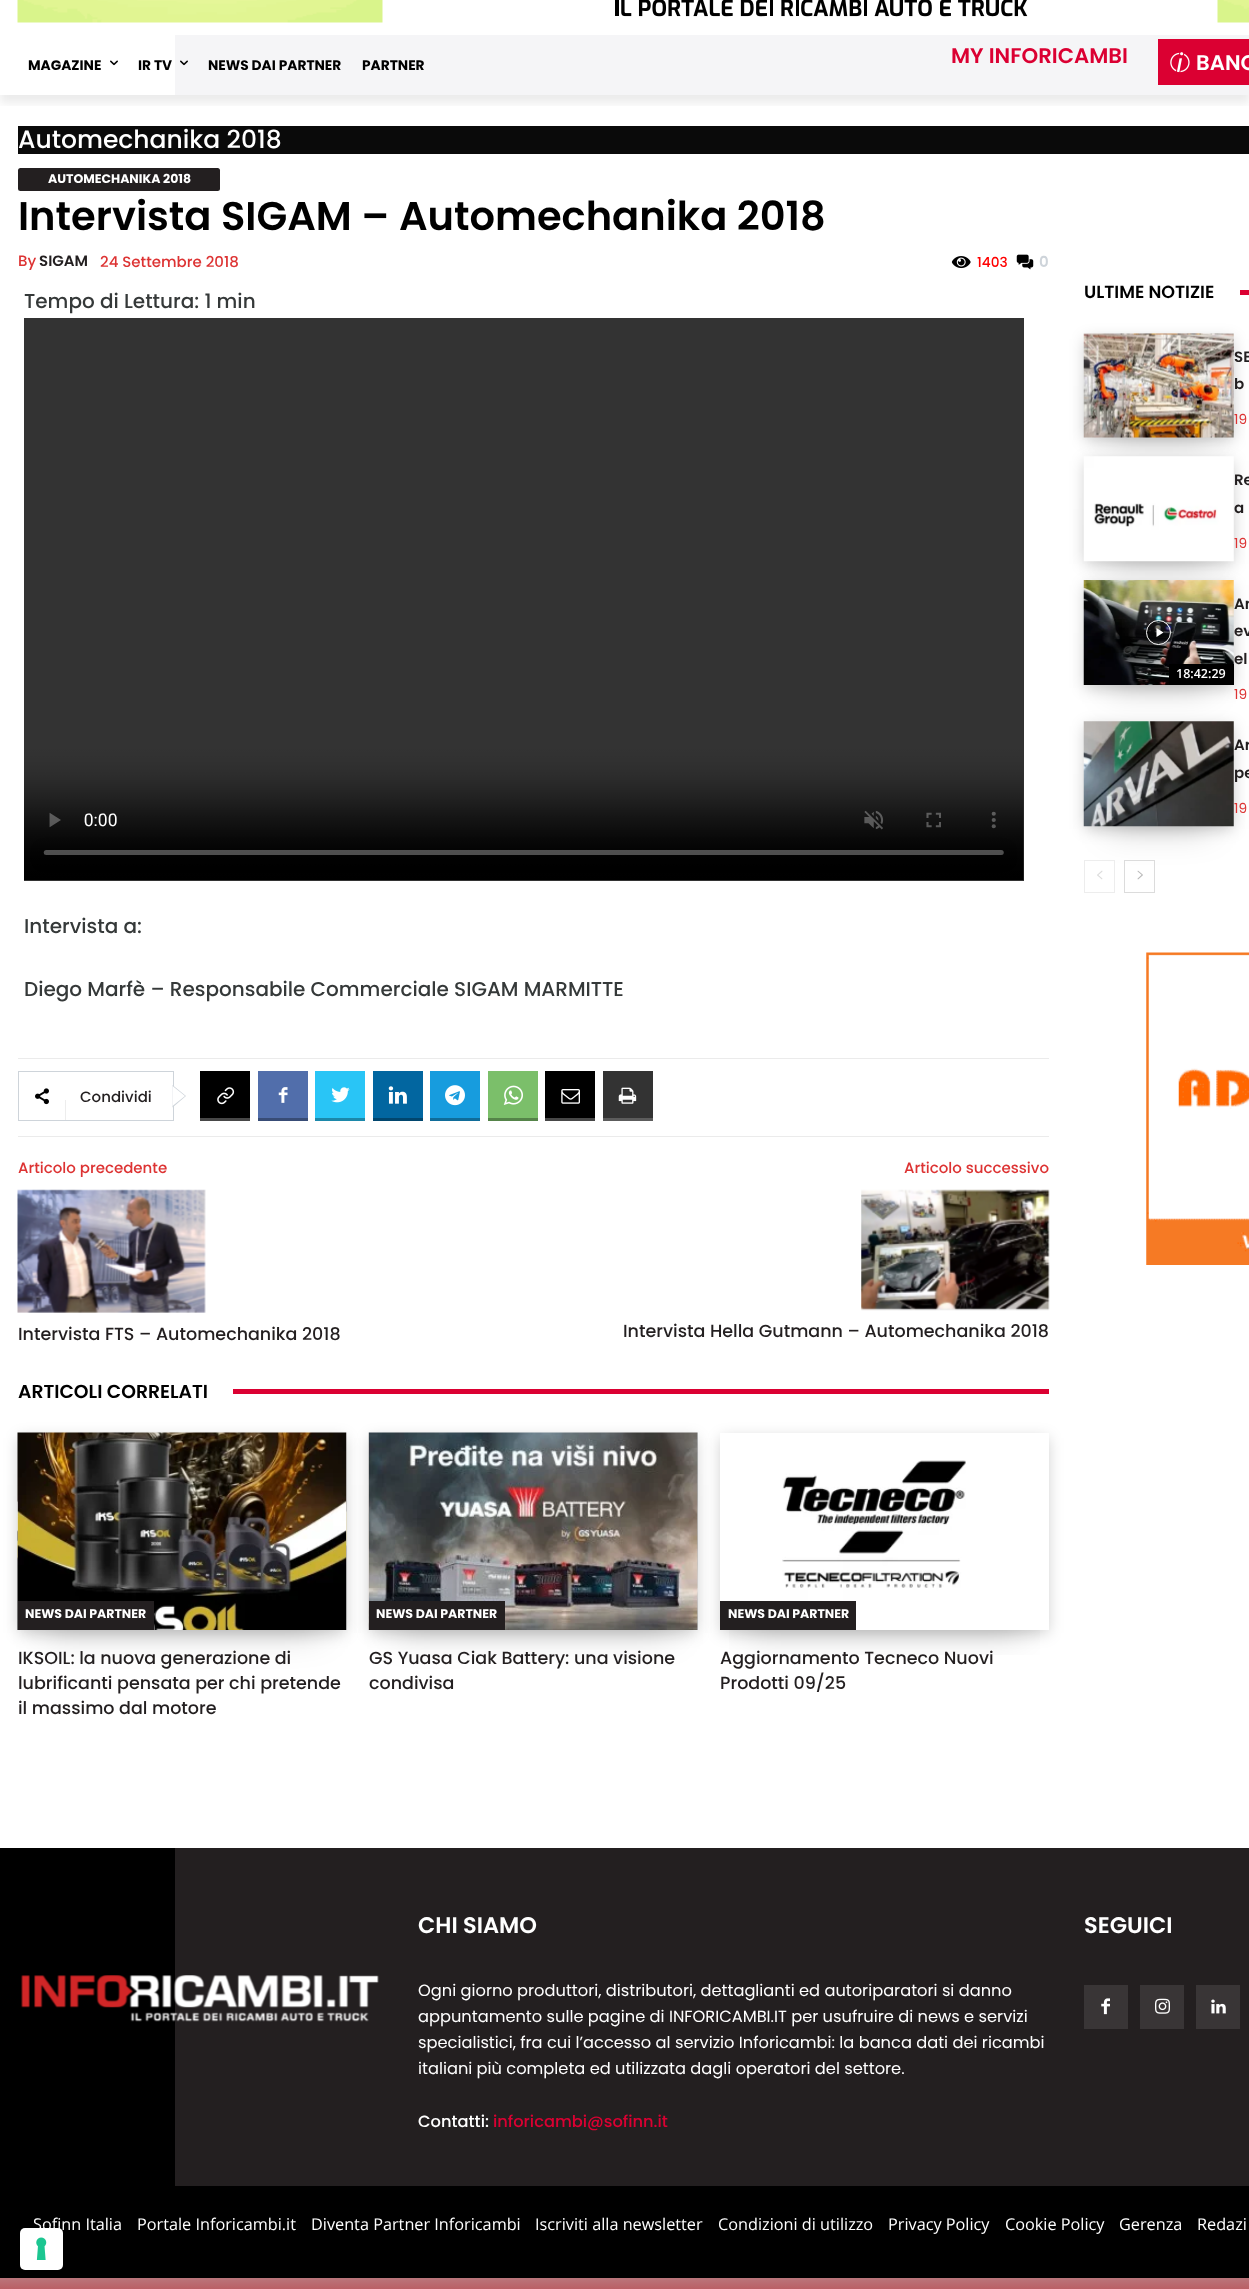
<?xml version="1.0" encoding="UTF-8"?>
<svg xmlns="http://www.w3.org/2000/svg" width="1249" height="2289">
    <defs>
        <clipPath id="clip1"><rect x="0" y="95" width="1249" height="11"/></clipPath>
        <filter id="blur1" x="-50%" y="-200%" width="200%" height="500%"><feGaussianBlur stdDeviation="5"/></filter>
        <filter id="blur2" x="-50%" y="-200%" width="200%" height="500%"><feGaussianBlur stdDeviation="17"/></filter>
        <filter id="blur3" x="-50%" y="-200%" width="200%" height="500%"><feGaussianBlur stdDeviation="7.5"/></filter>
        <clipPath id="clip2"><rect x="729" y="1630" width="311" height="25"/></clipPath>
        <clipPath id="clip3"><path d="M 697 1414 H 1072 V 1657 H 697 Z M 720 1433 H 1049 V 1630 H 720 Z" clip-rule="evenodd"/></clipPath>
        <clipPath id="clip4"><path d="M 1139 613 H 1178 V 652 H 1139 Z M 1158.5 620 C 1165.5 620 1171 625.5 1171 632.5 C 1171 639.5 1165.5 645 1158.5 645 C 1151.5 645 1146 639.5 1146 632.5 C 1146 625.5 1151.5 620 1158.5 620 Z" clip-rule="evenodd"/></clipPath>
        <filter id="blur4" x="-50%" y="-200%" width="200%" height="500%"><feGaussianBlur stdDeviation="2"/></filter>
        <linearGradient id="g1" gradientUnits="userSpaceOnUse" x1="625" y1="2271" x2="625" y2="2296"><stop offset="0" stop-color="#D18C8C" stop-opacity="0.5"/><stop offset="1" stop-color="#D02828" stop-opacity="0.5"/></linearGradient>
    </defs>
    <rect width="100%" height="100%" fill="#FFFFFF"/>
    <image x="17" y="0" width="366" height="23" href="img_01.png"/>
    <image x="615" y="0" width="413" height="17" href="img_02.png"/>
    <image x="1217" y="0" width="32" height="23" href="img_03.png"/>
    <rect x="175" y="35" width="1074" height="60" fill="#F5F5F7"/>
    <rect x="1158" y="39" width="91" height="46" fill="#DB0032"/>
    <image x="1170" y="52" width="20" height="21" href="img_06.png"/>
    <g clip-path="url(#clip1)">
        <rect x="0" y="-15" width="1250" height="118" fill="#000000" fill-opacity="0.08" filter="url(#blur1)"/>
    </g>
    <text x="28" y="70" font-family="Poppins" font-size="13.75" font-weight="700" fill="#000000">MAGAZINE</text>
    <image x="110" y="60" width="8" height="6" href="img_04.png"/>
    <text x="138" y="70" font-family="Poppins" font-size="13.75" font-weight="700" fill="#000000">IR TV</text>
    <image x="180" y="60" width="8" height="6" href="img_05.png"/>
    <text x="208" y="70" font-family="Poppins" font-size="13.75" font-weight="700" fill="#000000">NEWS DAI PARTNER</text>
    <text x="362" y="70" font-family="Poppins" font-size="13.75" font-weight="700" fill="#000000">PARTNER</text>
    <text x="951" y="63" font-family="Poppins" font-size="21.25" font-weight="600" fill="#DB0032">MY INFORICAMBI</text>
    <text x="1196" y="70" font-family="Poppins" font-size="21.25" font-weight="600" fill="#FFFFFF">BANC</text>
    <rect x="18" y="126" width="1231" height="28" fill="#0A0A0A"/>
    <text x="18" y="148" font-family="Poppins" font-size="25" font-weight="500" fill="#FFFFFF">Automechanika 2018</text>
    <rect x="18" y="168" width="202" height="23" rx="2.5" fill="#231F20"/>
    <text x="48" y="183" font-family="Poppins" font-size="12.5" font-weight="700" fill="#FFFFFF">AUTOMECHANIKA 2018</text>
    <text x="18" y="230" font-family="Poppins" font-size="40" font-weight="600" fill="#000000">Intervista SIGAM – Automechanika 2018</text>
    <text x="18" y="266" font-family="Poppins" font-size="15" font-weight="500" fill="#DD3333">By</text>
    <text x="39" y="266" font-family="Poppins" font-size="15" font-weight="600" fill="#231F20">SIGAM</text>
    <text x="100" y="267" font-family="Poppins" font-size="15" font-weight="500" fill="#DD3333">24 Settembre 2018</text>
    <image x="951" y="256" width="20" height="13" href="img_07.png"/>
    <text x="977" y="267" font-family="Poppins" font-size="13.75" font-weight="500" fill="#FF0000">1403</text>
    <image x="1016" y="254" width="18" height="16" href="img_08.png"/>
    <text x="1039" y="267" font-family="Poppins" font-size="15" font-weight="600" fill="#CED4DA">0</text>
    <text x="24" y="308" font-family="Poppins" font-size="20" font-weight="500" fill="#353939">Tempo di Lettura: 1 min</text>
    <image x="24" y="318" width="1000" height="563" href="img_09.png"/>
    <text x="24" y="933" font-family="Poppins" font-size="20" font-weight="500" fill="#353939">Intervista a:</text>
    <text x="24" y="996" font-family="Poppins" font-size="20" font-weight="500" fill="#353939">Diego Marfè – Responsabile Commerciale SIGAM MARMITTE</text>
    <rect x="18" y="1058" width="1031" height="1" fill="#EBEBEB"/>
    <rect x="18.5" y="1071.5" width="155" height="49" fill="none" stroke="#CED4DA"/>
    <path d="M 172.5 1107.5 V 1085 L 186 1096 Z" fill="#CED4DA"/>
    <image x="35" y="1088" width="14" height="17" href="img_10.png"/>
    <text x="80" y="1102" font-family="Poppins" font-size="15" font-weight="500" fill="#231F20">Condividi</text>
    <rect x="65" y="1100" width="1" height="20" fill="#EDEDED"/>
    <path d="M 172.5 1106 V 1086 L 185 1096 Z" fill="#FFFFFF"/>
    <rect x="200" y="1071" width="50" height="47" fill="#000000"/>
    <rect x="200" y="1118" width="50" height="3" fill="#474747"/>
    <image x="217" y="1087" width="18" height="18" href="img_11.png"/>
    <rect x="258" y="1071" width="50" height="47" fill="#516EAB"/>
    <rect x="258" y="1118" width="50" height="3" fill="#384C76"/>
    <image x="278" y="1087" width="10" height="16" href="img_12.png"/>
    <rect x="315" y="1071" width="50" height="47" fill="#29C5F6"/>
    <rect x="315" y="1118" width="50" height="3" fill="#1C88AA"/>
    <image x="331" y="1087" width="19" height="16" href="img_13.png"/>
    <rect x="373" y="1071" width="50" height="47" fill="#0266A0"/>
    <rect x="373" y="1118" width="50" height="3" fill="#01466E"/>
    <image x="388" y="1086" width="19" height="18" href="img_14.png"/>
    <rect x="430" y="1071" width="50" height="47" fill="#179CDE"/>
    <rect x="430" y="1118" width="50" height="3" fill="#106C99"/>
    <image x="445" y="1085" width="20" height="21" href="img_15.png"/>
    <rect x="488" y="1071" width="50" height="47" fill="#7BBF6A"/>
    <rect x="488" y="1118" width="50" height="3" fill="#558449"/>
    <image x="503" y="1085" width="20" height="20" href="img_16.png"/>
    <rect x="545" y="1071" width="50" height="47" fill="#000000"/>
    <rect x="545" y="1118" width="50" height="3" fill="#474747"/>
    <image x="561" y="1089" width="19" height="15" href="img_17.png"/>
    <rect x="603" y="1071" width="50" height="47" fill="#333333"/>
    <rect x="603" y="1118" width="50" height="3" fill="#5C5C5C"/>
    <image x="618" y="1087" width="19" height="17" href="img_18.png"/>
    <rect x="18" y="1136" width="1031" height="1" fill="#EBEBEB"/>
    <text x="18" y="1173" font-family="Poppins" font-size="15" font-weight="500" fill="#DD3333">Articolo precedente</text>
    <image x="17" y="1189" width="189" height="124" href="img_19.png"/>
    <text x="18" y="1340" font-family="Poppins" font-size="17.5" font-weight="500" fill="#231F20">Intervista FTS – Automechanika 2018</text>
    <text x="904" y="1173" font-family="Poppins" font-size="15" font-weight="500" fill="#DD3333">Articolo successivo</text>
    <image x="861" y="1189" width="189" height="122" href="img_20.png"/>
    <text x="623" y="1337" font-family="Poppins" font-size="17.5" font-weight="500" fill="#231F20">Intervista Hella Gutmann – Automechanika 2018</text>
    <text x="18" y="1398" font-family="Poppins" font-size="18.75" font-weight="600" fill="#000000">ARTICOLI CORRELATI</text>
    <rect x="233" y="1389" width="816" height="5" fill="#DB0032"/>
    <rect x="43" y="1485" width="278" height="148" fill="#070A19" fill-opacity="0.2" filter="url(#blur2)"/>
    <rect x="19" y="1438" width="326" height="195" fill="#070A19" fill-opacity="0.2" filter="url(#blur3)"/>
    <image x="17" y="1432" width="330" height="198" href="img_21.png"/>
    <rect x="18" y="1601" width="136" height="29" fill="#231F20"/>
    <text x="25" y="1618" font-family="Poppins" font-size="12.5" font-weight="700" fill="#FFFFFF">NEWS DAI PARTNER</text>
    <text font-family="Poppins" font-size="17.5" font-weight="500" fill="#231F20">
        <tspan x="18" y="1664">IKSOIL: la nuova generazione di</tspan>
        <tspan x="18" y="1689">lubrificanti pensata per chi pretende</tspan>
        <tspan x="18" y="1714">il massimo dal motore</tspan>
    </text>
    <rect x="394" y="1485" width="279" height="148" fill="#070A19" fill-opacity="0.2" filter="url(#blur2)"/>
    <rect x="370" y="1438" width="326" height="195" fill="#070A19" fill-opacity="0.2" filter="url(#blur3)"/>
    <image x="368" y="1432" width="330" height="198" href="img_22.png"/>
    <rect x="369" y="1601" width="136" height="29" fill="#231F20"/>
    <text x="376" y="1618" font-family="Poppins" font-size="12.5" font-weight="700" fill="#FFFFFF">NEWS DAI PARTNER</text>
    <text font-family="Poppins" font-size="17.5" font-weight="500" fill="#231F20">
        <tspan x="369" y="1664">GS Yuasa Ciak Battery: una visione</tspan>
        <tspan x="369" y="1689">condivisa</tspan>
    </text>
    <g clip-path="url(#clip2)">
        <rect x="745" y="1485" width="279" height="148" fill="#070A19" fill-opacity="0.2" filter="url(#blur2)"/>
    </g>
    <g clip-path="url(#clip3)">
        <rect x="721" y="1438" width="327" height="195" fill="#070A19" fill-opacity="0.2" filter="url(#blur3)"/>
    </g>
    <image x="782" y="1448" width="267" height="179" href="img_23.png"/>
    <rect x="720" y="1601" width="136" height="29" fill="#231F20"/>
    <text x="728" y="1618" font-family="Poppins" font-size="12.5" font-weight="700" fill="#FFFFFF">NEWS DAI PARTNER</text>
    <text font-family="Poppins" font-size="17.5" font-weight="500" fill="#231F20">
        <tspan x="720" y="1664">Aggiornamento Tecneco Nuovi</tspan>
        <tspan x="720" y="1689">Prodotti 09/25</tspan>
    </text>
    <text x="1084" y="298" font-family="Poppins" font-size="17.5" font-weight="600" fill="#000000">ULTIME NOTIZIE</text>
    <rect x="1240" y="290" width="9" height="5" fill="#DB0032"/>
    <rect x="1109" y="386" width="100" height="54" fill="#070A19" fill-opacity="0.2" filter="url(#blur2)"/>
    <rect x="1085" y="339" width="148" height="101" fill="#070A19" fill-opacity="0.2" filter="url(#blur3)"/>
    <image x="1083" y="333" width="151" height="105" href="img_24.png"/>
    <text font-family="Poppins" font-size="15" font-weight="600" fill="#231F20">
        <tspan x="1234" y="362">SE</tspan>
        <tspan x="1234" y="389">b</tspan>
    </text>
    <text x="1234" y="424" font-family="Poppins" font-size="13.75" fill="#DD3333">19</text>
    <rect x="1109" y="509" width="100" height="55" fill="#070A19" fill-opacity="0.2" filter="url(#blur2)"/>
    <rect x="1085" y="461" width="148" height="103" fill="#070A19" fill-opacity="0.2" filter="url(#blur3)"/>
    <image x="1083" y="456" width="151" height="106" href="img_25.png"/>
    <text font-family="Poppins" font-size="15" font-weight="600" fill="#231F20">
        <tspan x="1234" y="485">Re</tspan>
        <tspan x="1234" y="513">a</tspan>
    </text>
    <text x="1234" y="548" font-family="Poppins" font-size="13.75" fill="#DD3333">19</text>
    <rect x="1109" y="633" width="100" height="55" fill="#070A19" fill-opacity="0.2" filter="url(#blur2)"/>
    <rect x="1085" y="585" width="148" height="103" fill="#070A19" fill-opacity="0.2" filter="url(#blur3)"/>
    <image x="1083" y="580" width="151" height="105" href="img_26.png"/>
    <g clip-path="url(#clip4)">
        <rect x="1146" y="620" width="25" height="25" rx="12.5" fill="#000000" fill-opacity="0.4" filter="url(#blur4)"/>
    </g>
    <circle cx="1158.5" cy="632.5" r="12" fill="#000000" fill-opacity="0.48" stroke="#FFFFFF"/>
    <path d="M 1156.5 628 V 637 L 1163.5 632.5 Z" fill="#FFFFFF"/>
    <rect x="1169" y="664" width="65" height="21" fill="#000000"/>
    <text x="1176" y="678" font-family="Open Sans" font-size="12.5" font-weight="600" fill="#FFFFFF">18:42:29</text>
    <text font-family="Poppins" font-size="15" font-weight="600" fill="#231F20">
        <tspan x="1234" y="609">An</tspan>
        <tspan x="1234" y="636">ev</tspan>
        <tspan x="1234" y="664">el</tspan>
    </text>
    <text x="1234" y="699" font-family="Poppins" font-size="13.75" fill="#DD3333">19</text>
    <rect x="1109" y="774" width="100" height="55" fill="#070A19" fill-opacity="0.2" filter="url(#blur2)"/>
    <rect x="1085" y="726" width="148" height="103" fill="#070A19" fill-opacity="0.2" filter="url(#blur3)"/>
    <image x="1083" y="721" width="151" height="106" href="img_27.png"/>
    <text font-family="Poppins" font-size="15" font-weight="600" fill="#231F20">
        <tspan x="1234" y="750">Ar</tspan>
        <tspan x="1234" y="778">pe</tspan>
    </text>
    <text x="1234" y="813" font-family="Poppins" font-size="13.75" fill="#DD3333">19</text>
    <rect x="1084.5" y="860.5" width="30" height="32" fill="none" stroke="#EDEDED"/>
    <image x="1097" y="870" width="6" height="10" href="img_28.png"/>
    <rect x="1124.5" y="860.5" width="30" height="32" fill="none" stroke="#DCDCDC"/>
    <image x="1137" y="870" width="6" height="10" href="img_29.png"/>
    <image x="1146" y="952" width="103" height="313" href="img_30.png"/>
    <rect x="0" y="1848" width="1249" height="441" fill="#000000"/>
    <rect x="175" y="1848" width="1074" height="338" fill="#231F20"/>
    <text x="418" y="1933" font-family="Poppins" font-size="22.5" font-weight="600" fill="#FFFFFF">CHI SIAMO</text>
    <text font-family="Poppins" font-size="16.25" fill="#FFFFFF">
        <tspan x="418" y="1996">Ogni giorno produttori, distributori, dettaglianti ed autoriparatori si danno</tspan>
        <tspan x="418" y="2022">appuntamento sulle pagine di INFORICAMBI.IT per usufruire di news e servizi</tspan>
        <tspan x="418" y="2048">specialistici, fra cui l’accesso al servizio Inforicambi: la banca dati dei ricambi</tspan>
        <tspan x="418" y="2074">italiani più completa ed utilizzata dagli operatori del settore.</tspan>
    </text>
    <text x="418" y="2127" font-family="Poppins" font-size="16.25" font-weight="500" fill="#FFFFFF">Contatti:</text>
    <text x="493" y="2127" font-family="Poppins" font-size="16.25" font-weight="500" fill="#DB0032">inforicambi@sofinn.it</text>
    <text x="1084" y="1933" font-family="Poppins" font-size="22.5" font-weight="600" fill="#FFFFFF">SEGUICI</text>
    <rect x="1084" y="1985" width="44" height="44" fill="#393536"/>
    <image x="1101" y="1998" width="9" height="17" href="img_31.png"/>
    <rect x="1140" y="1985" width="44" height="44" fill="#393536"/>
    <image x="1155" y="1998" width="15" height="16" href="img_32.png"/>
    <rect x="1196" y="1985" width="44" height="44" fill="#393536"/>
    <image x="1211" y="1999" width="15" height="15" href="img_33.png"/>
    <image x="21" y="1975" width="358" height="47" href="img_34.png"/>
    <text x="33" y="2230" font-family="Open Sans" font-size="16.25" fill="#FFFFFF">Sofinn Italia</text>
    <text x="137" y="2230" font-family="Open Sans" font-size="16.25" fill="#FFFFFF">Portale Inforicambi.it</text>
    <text x="311" y="2230" font-family="Open Sans" font-size="16.25" fill="#FFFFFF">Diventa Partner Inforicambi</text>
    <text x="535" y="2230" font-family="Open Sans" font-size="16.25" fill="#FFFFFF">Iscriviti alla newsletter</text>
    <text x="718" y="2230" font-family="Open Sans" font-size="16.25" fill="#FFFFFF">Condizioni di utilizzo</text>
    <text x="888" y="2230" font-family="Open Sans" font-size="16.25" fill="#FFFFFF">Privacy Policy</text>
    <text x="1005" y="2230" font-family="Open Sans" font-size="16.25" fill="#FFFFFF">Cookie Policy</text>
    <text x="1119" y="2230" font-family="Open Sans" font-size="16.25" fill="#FFFFFF">Gerenza</text>
    <text x="1197" y="2230" font-family="Open Sans" font-size="16.25" fill="#FFFFFF">Redazi</text>
    <rect x="19.5" y="2226.5" width="44" height="44" rx="5.5" fill="none" stroke="#000000" stroke-opacity="0.15"/>
    <rect x="20" y="2228" width="43" height="42" rx="5" fill="#FFFFFF"/>
    <image x="36" y="2237" width="11" height="23" href="img_35.png"/>
    <rect x="0" y="2278" width="1249" height="11" fill="#E8D5FF" fill-opacity="0.5"/>
    <rect x="0" y="2278" width="1249" height="11" fill="#D18C8C" fill-opacity="0.5"/>
    <rect x="0" y="2278" width="1249" height="11" fill="url(#g1)"/>
</svg>
